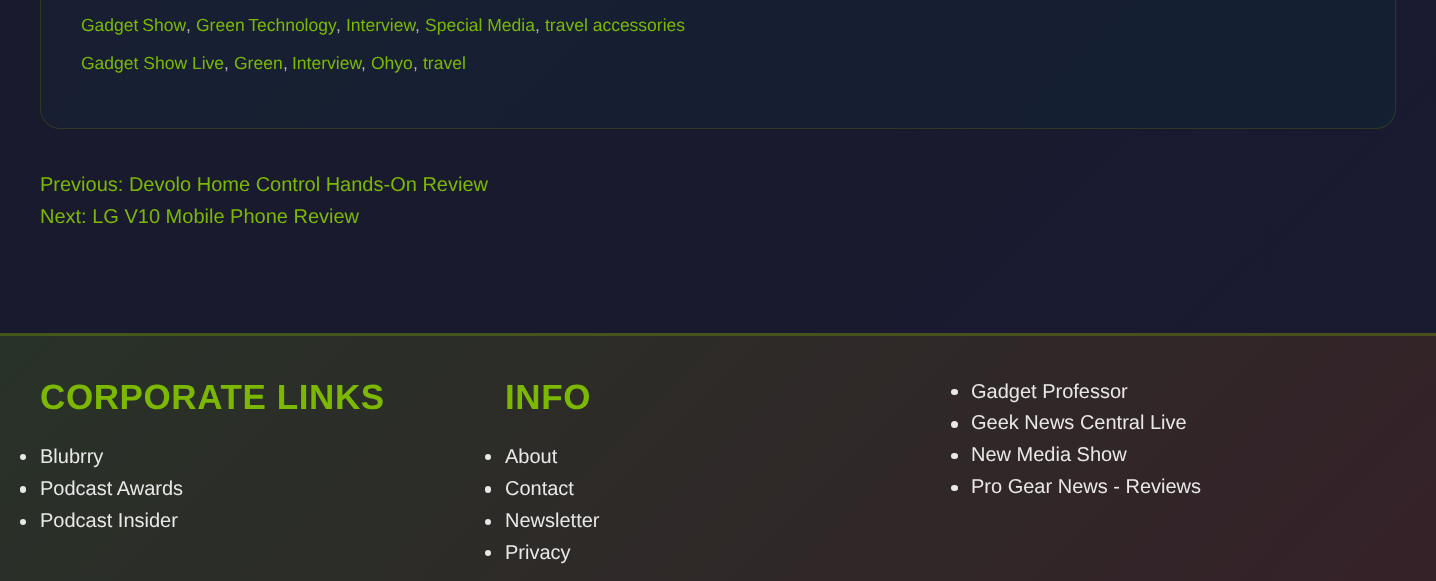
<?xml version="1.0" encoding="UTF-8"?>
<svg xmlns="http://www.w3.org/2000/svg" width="1436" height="581">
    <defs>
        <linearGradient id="g1" gradientUnits="userSpaceOnUse" x1="214" y1="-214" x2="1223" y2="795"><stop offset="0" stop-color="#1A1A2E"/><stop offset="0.5" stop-color="#1A1A2F"/><stop offset="1" stop-color="#191B31"/></linearGradient>
        <clipPath id="clip1"><rect x="40" y="-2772" width="1356" height="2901" rx="20"/></clipPath>
        <linearGradient id="g2" gradientUnits="userSpaceOnUse" x1="-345" y1="-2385" x2="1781" y2="-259"><stop offset="0" stop-color="#1E1E32" stop-opacity="0.9"/><stop offset="1" stop-color="#142032" stop-opacity="0.9"/></linearGradient>
        <linearGradient id="g3" gradientUnits="userSpaceOnUse" x1="258" y1="-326" x2="1178" y2="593"><stop offset="0" stop-color="#415A1C"/><stop offset="1" stop-color="#4B4E1C"/></linearGradient>
        <linearGradient id="g4" gradientUnits="userSpaceOnUse" x1="258" y1="77" x2="1178" y2="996"><stop offset="0" stop-color="#283228"/><stop offset="1" stop-color="#362028"/></linearGradient>
        <linearGradient id="g5" gradientUnits="userSpaceOnUse" x1="258" y1="77" x2="1178" y2="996"><stop offset="0" stop-color="#415A1C"/><stop offset="1" stop-color="#4B4E1C"/></linearGradient>
    </defs>
    <rect width="100%" height="100%" fill="#FFFFFF"/>
    <rect x="0" y="0" width="1436" height="333" fill="url(#g1)"/>
    <g clip-path="url(#clip1)">
        <rect x="41" y="0" width="1354" height="128" fill="url(#g2)"/>
    </g>
    <rect x="40.5" y="-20.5" width="1355" height="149" rx="19.5" fill="none" stroke="#7CB800" stroke-opacity="0.2"/>
    <text x="81" y="31" word-spacing="-1" font-family="Liberation Sans" font-size="17.5" fill="#7CB800">Gadget Show</text>
    <text x="186" y="31" font-family="Liberation Sans" font-size="17.5" fill="#B8B8B8">,</text>
    <text x="196" y="31" word-spacing="-1" font-family="Liberation Sans" font-size="17.5" fill="#7CB800">Green Technology</text>
    <text x="336" y="31" font-family="Liberation Sans" font-size="17.5" fill="#B8B8B8">,</text>
    <text x="346" y="31" font-family="Liberation Sans" font-size="17.5" fill="#7CB800">Interview</text>
    <text x="415" y="31" font-family="Liberation Sans" font-size="17.5" fill="#B8B8B8">,</text>
    <text x="425" y="31" font-family="Liberation Sans" font-size="17.5" fill="#7CB800">Special Media</text>
    <text x="535" y="31" font-family="Liberation Sans" font-size="17.5" fill="#B8B8B8">,</text>
    <text x="545" y="31" font-family="Liberation Sans" font-size="17.5" fill="#7CB800">travel accessories</text>
    <text x="81" y="69" font-family="Liberation Sans" font-size="17.5" fill="#7CB800">Gadget Show Live</text>
    <text x="224" y="69" font-family="Liberation Sans" font-size="17.5" fill="#B8B8B8">,</text>
    <text x="234" y="69" font-family="Liberation Sans" font-size="17.5" fill="#7CB800">Green</text>
    <text x="283" y="69" font-family="Liberation Sans" font-size="17.5" fill="#B8B8B8">,</text>
    <text x="292" y="69" font-family="Liberation Sans" font-size="17.5" fill="#7CB800">Interview</text>
    <text x="361" y="69" font-family="Liberation Sans" font-size="17.5" fill="#B8B8B8">,</text>
    <text x="371" y="69" font-family="Liberation Sans" font-size="17.5" fill="#7CB800">Ohyo</text>
    <text x="413" y="69" font-family="Liberation Sans" font-size="17.5" fill="#B8B8B8">,</text>
    <text x="423" y="69" font-family="Liberation Sans" font-size="17.5" fill="#7CB800">travel</text>
    <text font-family="Liberation Sans" font-size="20" fill="#7CB800">
        <tspan x="40" y="191">Previous: Devolo Home Control Hands-On Review</tspan>
        <tspan x="40" y="223">Next: LG V10 Mobile Phone Review</tspan>
    </text>
    <rect x="0" y="333" width="1436" height="2" fill="url(#g3)"/>
    <rect x="0" y="336" width="1436" height="245" fill="url(#g4)"/>
    <rect x="0" y="335" width="1436" height="1" fill="url(#g5)"/>
    <text x="40" y="409" font-family="Liberation Sans" font-size="35" font-weight="700" letter-spacing="0.6" fill="#7CB800">CORPORATE LINKS</text>
    <circle cx="23" cy="457" r="3" fill="#E8E8E8"/>
    <text x="40" y="463" font-family="Liberation Sans" font-size="20" fill="#E8E8E8">Blubrry</text>
    <rect x="20" y="486" width="6" height="7" rx="3" fill="#E8E8E8"/>
    <text x="40" y="495" font-family="Liberation Sans" font-size="20" fill="#E8E8E8">Podcast Awards</text>
    <circle cx="23" cy="522" r="3" fill="#E8E8E8"/>
    <text x="40" y="527" font-family="Liberation Sans" font-size="20" fill="#E8E8E8">Podcast Insider</text>
    <text x="505" y="409" font-family="Liberation Sans" font-size="35" font-weight="700" letter-spacing="0.6" fill="#7CB800">INFO</text>
    <circle cx="488" cy="457" r="3" fill="#E8E8E8"/>
    <text x="505" y="463" font-family="Liberation Sans" font-size="20" fill="#E8E8E8">About</text>
    <rect x="485" y="486" width="6" height="7" rx="3" fill="#E8E8E8"/>
    <text x="505" y="495" font-family="Liberation Sans" font-size="20" fill="#E8E8E8">Contact</text>
    <circle cx="488" cy="522" r="3" fill="#E8E8E8"/>
    <text x="505" y="527" font-family="Liberation Sans" font-size="20" fill="#E8E8E8">Newsletter</text>
    <circle cx="488" cy="553" r="3" fill="#E8E8E8"/>
    <text x="505" y="559" font-family="Liberation Sans" font-size="20" fill="#E8E8E8">Privacy</text>
    <rect x="951" y="389" width="7" height="6" rx="3" fill="#E8E8E8"/>
    <text x="971" y="398" font-family="Liberation Sans" font-size="20" fill="#E8E8E8">Gadget Professor</text>
    <circle cx="954.5" cy="424.5" r="3.5" fill="#E8E8E8"/>
    <text x="971" y="429" font-family="Liberation Sans" font-size="20" fill="#E8E8E8">Geek News Central Live</text>
    <rect x="951" y="453" width="7" height="6" rx="3" fill="#E8E8E8"/>
    <text x="971" y="461" font-family="Liberation Sans" font-size="20" fill="#E8E8E8">New Media Show</text>
    <rect x="951" y="485" width="7" height="6" rx="3" fill="#E8E8E8"/>
    <text x="971" y="493" font-family="Liberation Sans" font-size="20" fill="#E8E8E8">Pro Gear News - Reviews</text>
</svg>
